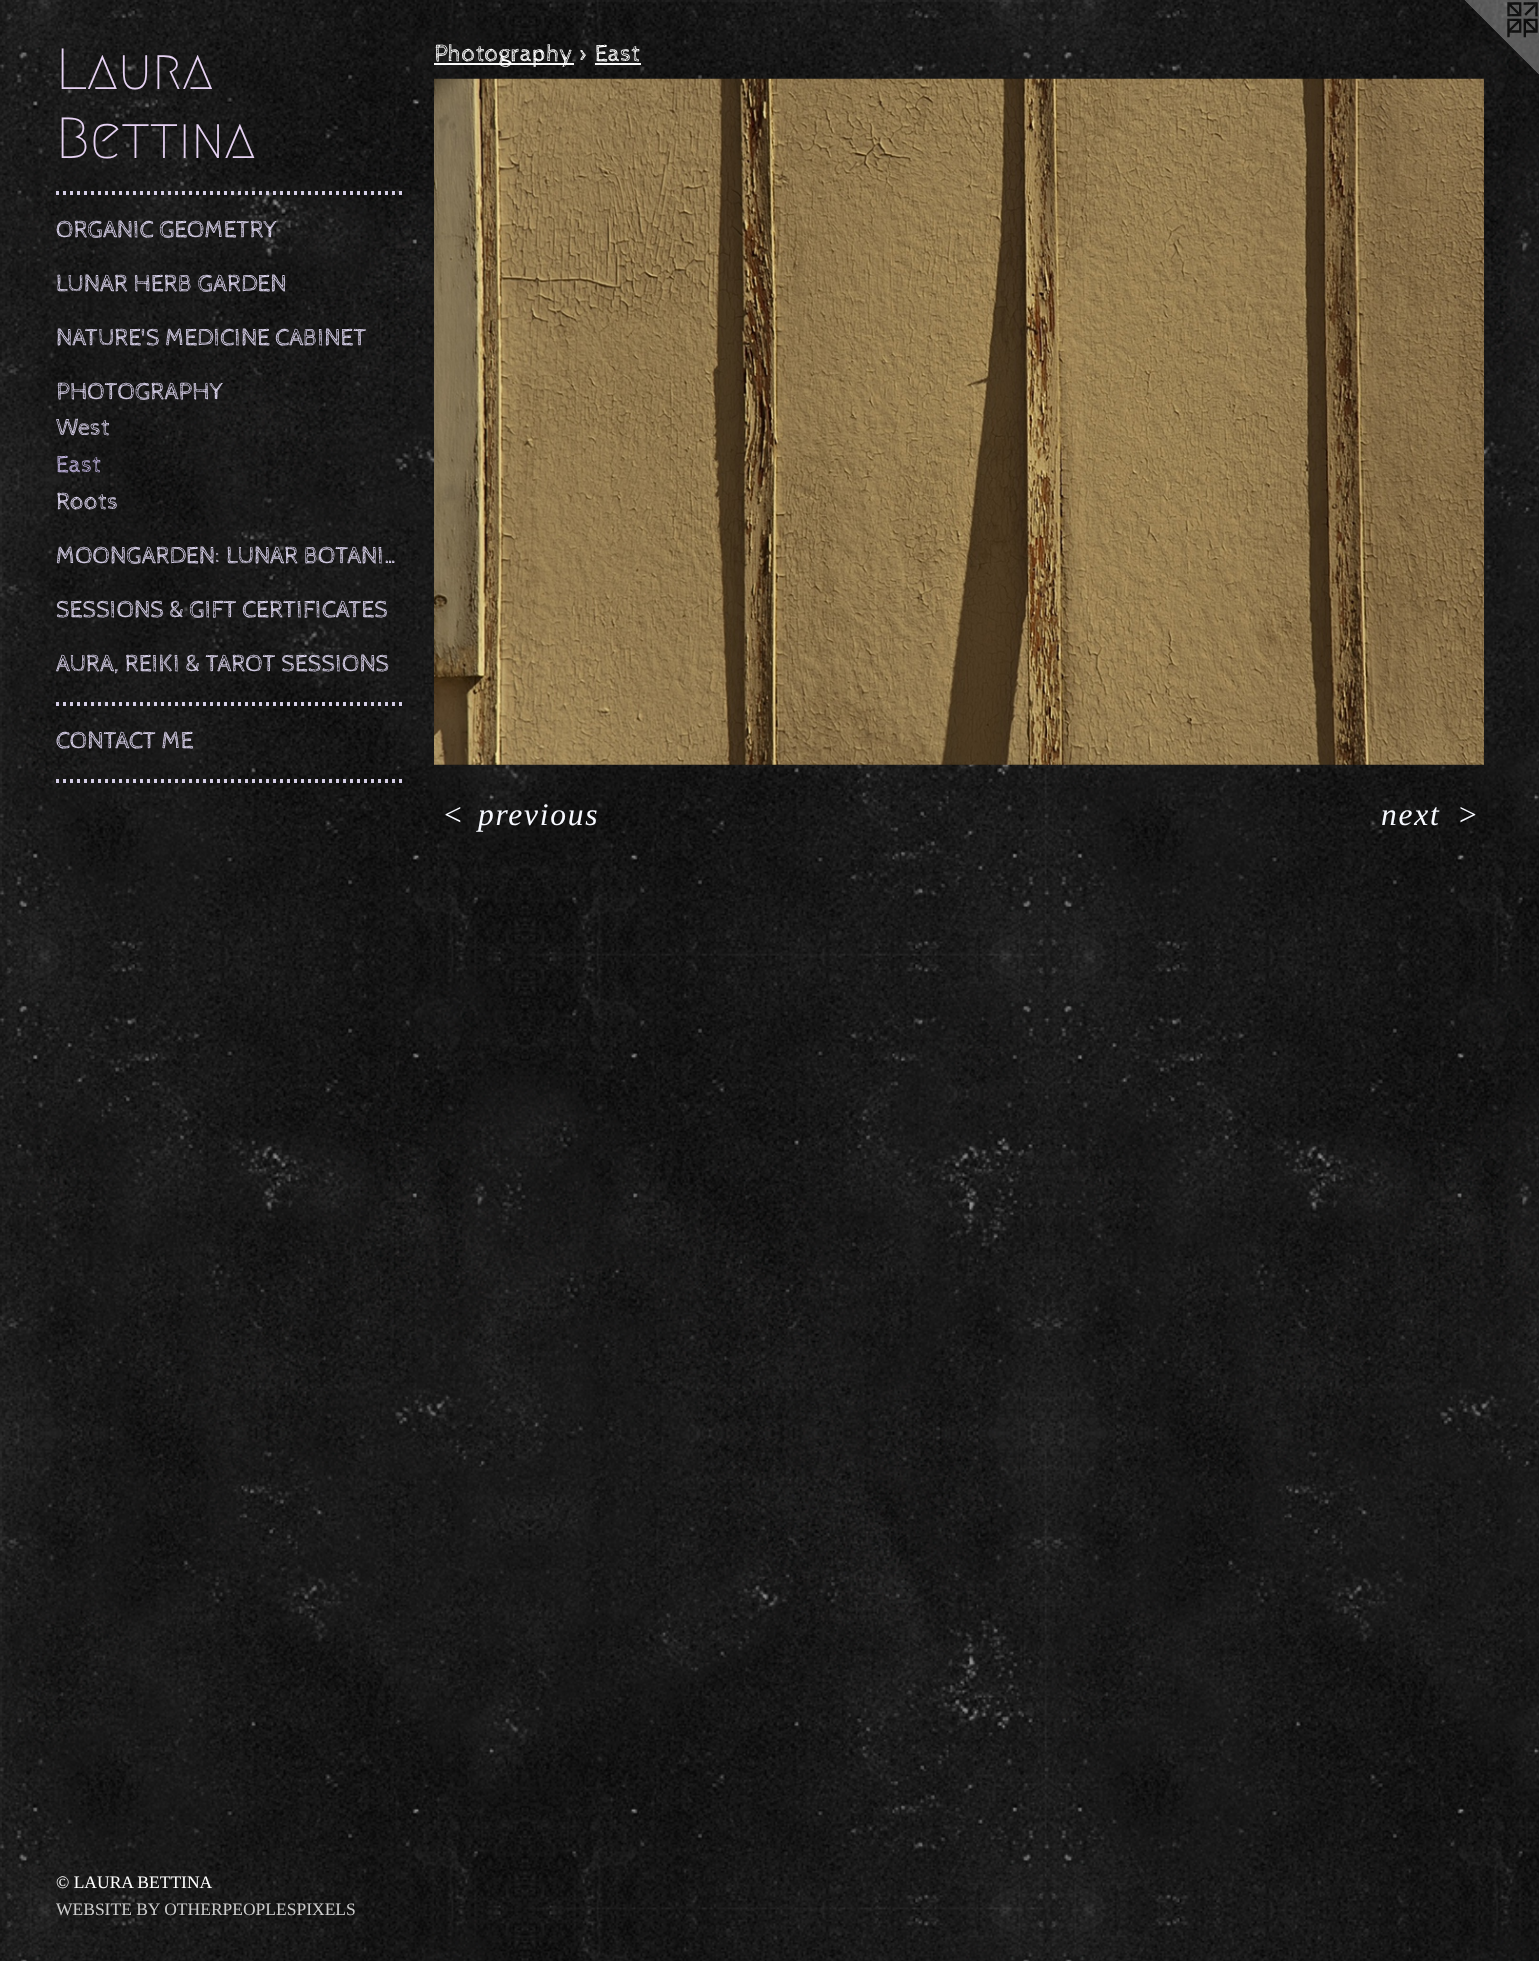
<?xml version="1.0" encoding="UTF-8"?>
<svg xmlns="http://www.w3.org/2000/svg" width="1539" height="1961">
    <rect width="100%" height="100%" fill="#FFFFFF"/>
    <image x="0" y="0" width="1539" height="1961" href="img_01.png"/>
    <text font-family="Megrim" font-size="58" font-weight="500" fill="#E6D2F3">
        <tspan x="56" y="89">Laura</tspan>
        <tspan x="56" y="158">Bettina</tspan>
    </text>
    <image x="56" y="191" width="346" height="4" href="img_02.png"/>
    <text x="56" y="237" font-family="Cabin Sketch" font-size="24.5" fill="#D4CDE5">ORGANIC GEOMETRY</text>
    <text x="56" y="291" font-family="Cabin Sketch" font-size="24.5" fill="#D4CDE5">LUNAR HERB GARDEN</text>
    <text x="56" y="345" font-family="Cabin Sketch" font-size="24.5" fill="#D4CDE5">NATURE'S MEDICINE CABINET</text>
    <text font-family="Cabin Sketch" font-size="24.5" fill="#D4CDE5">
        <tspan x="56" y="399">PHOTOGRAPHY</tspan>
        <tspan x="56" y="435">West</tspan>
    </text>
    <text x="56" y="472" font-family="Cabin Sketch" font-size="24.5" fill="#B7ABD4">East</text>
    <text x="56" y="509" font-family="Cabin Sketch" font-size="24.5" fill="#D4CDE5">Roots</text>
    <text x="56" y="563" font-family="Cabin Sketch" font-size="24.5" fill="#D4CDE5">MOONGARDEN: LUNAR BOTANI…</text>
    <text x="56" y="617" font-family="Cabin Sketch" font-size="24.5" fill="#D4CDE5">SESSIONS &amp; GIFT CERTIFICATES</text>
    <text x="56" y="671" font-family="Cabin Sketch" font-size="24.5" fill="#D4CDE5">AURA, REIKI &amp; TAROT SESSIONS</text>
    <image x="56" y="702" width="346" height="4" href="img_03.png"/>
    <text x="56" y="748" font-family="Cabin Sketch" font-size="24.5" fill="#D4CDE5">CONTACT ME</text>
    <image x="56" y="779" width="346" height="4" href="img_04.png"/>
    <text x="56" y="1888" font-family="Liberation Serif" font-size="17.5" fill="#FFFFFF">© LAURA BETTINA</text>
    <text x="56" y="1915" font-family="Liberation Serif" font-size="17.5" fill="#CCCCCC">WEBSITE BY OTHERPEOPLESPIXELS</text>
    <rect x="434" y="63" width="140" height="2" fill="#FBFBFB"/>
    <text x="434" y="61" font-family="Cabin Sketch" font-size="24.5" fill="#FFFFFF">Photography &gt; East</text>
    <rect x="595" y="63" width="46" height="2" fill="#FBFBFB"/>
    <image x="434" y="78" width="1050" height="687" href="img_05.png"/>
    <text x="442" y="825" font-family="Liberation Serif" font-size="31.5" font-style="italic" letter-spacing="1.75" fill="#F7F9FF">&lt;</text>
    <text x="478" y="825" font-family="Liberation Serif" font-size="31.5" font-style="italic" letter-spacing="1.75" fill="#F7F9FF">previous</text>
    <text x="1381" y="825" font-family="Liberation Serif" font-size="31.5" font-style="italic" letter-spacing="1.75" fill="#F7F9FF">next</text>
    <text x="1457" y="825" font-family="Liberation Serif" font-size="31.5" font-style="italic" letter-spacing="1.75" fill="#F7F9FF">&gt;</text>
    <image x="1464" y="0" width="75" height="75" href="img_06.png"/>
</svg>
